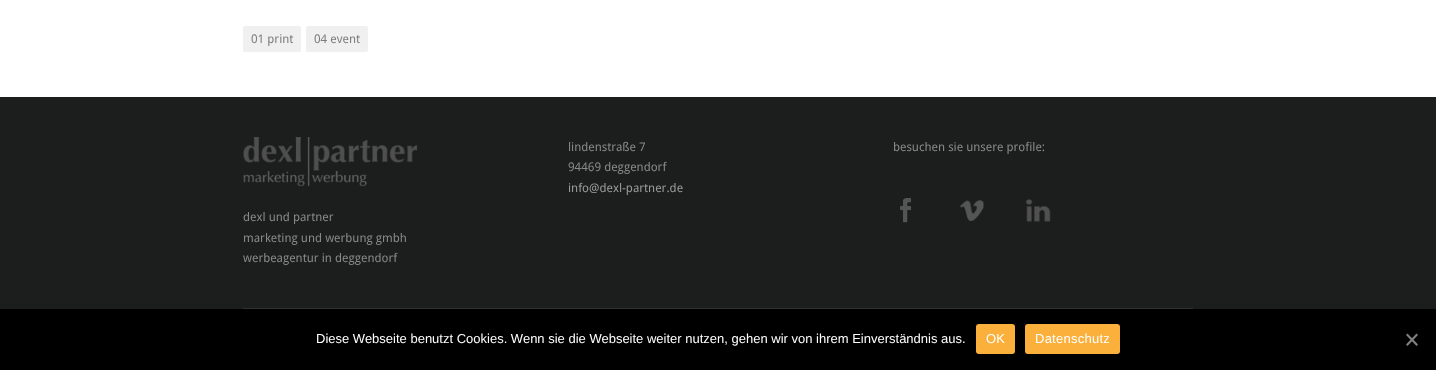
<?xml version="1.0" encoding="UTF-8"?>
<svg xmlns="http://www.w3.org/2000/svg" width="1436" height="370">
    <rect width="100%" height="100%" fill="#1C1D1D"/>
    <rect x="0" y="0" width="1436" height="97" fill="#FFFFFF"/>
    <rect x="243" y="26" width="58" height="26" rx="2" fill="#F0F0F0"/>
    <text x="251" y="43" font-family="Droid Sans" font-size="12" fill="#7D7D7B">01 print</text>
    <rect x="306" y="26" width="62" height="26" rx="2" fill="#F0F0F0"/>
    <text x="314" y="43" font-family="Droid Sans" font-size="12" fill="#7D7D7B">04 event</text>
    <text font-family="Droid Sans" font-size="12" fill="#888888">
        <tspan x="568" y="151">lindenstraße 7</tspan>
        <tspan x="568" y="171">94469 deggendorf</tspan>
    </text>
    <text x="568" y="192" font-family="Droid Sans" font-size="12" fill="#9A9A99">info@dexl-partner.de</text>
    <text x="893" y="151" font-family="Droid Sans" font-size="12" fill="#888888">besuchen sie unsere profile:</text>
    <image x="900" y="198" width="11" height="25" href="img_01.png"/>
    <image x="960" y="200" width="24" height="21" href="img_02.png"/>
    <image x="1026" y="199" width="25" height="23" href="img_03.png"/>
    <image x="243" y="137" width="175" height="50" href="img_04.png"/>
    <text font-family="Droid Sans" font-size="12" fill="#888888">
        <tspan x="243" y="221">dexl und partner</tspan>
        <tspan x="243" y="242">marketing und werbung gmbh</tspan>
        <tspan x="243" y="262">werbeagentur in deggendorf</tspan>
    </text>
    <rect x="243" y="308" width="950" height="1" fill="#313131"/>
    <rect x="0" y="309" width="1436" height="61" fill="#000000"/>
    <text x="316" y="343" font-family="Liberation Sans" font-size="13" fill="#FFFFFF">Diese Webseite benutzt Cookies. Wenn sie die Webseite weiter nutzen, gehen wir von ihrem Einverständnis aus.</text>
    <rect x="976" y="324" width="39" height="30" rx="3" fill="#FBB03B"/>
    <text x="986" y="343" font-family="Liberation Sans" font-size="13" letter-spacing="0.25" fill="#FFFFFF">OK</text>
    <rect x="1025" y="324" width="95" height="30" rx="3" fill="#FBB03B"/>
    <text x="1035" y="343" font-family="Liberation Sans" font-size="13" letter-spacing="0.25" fill="#FFFFFF">Datenschutz</text>
    <path d="M 1416.5 333.5 L 1418 335 L 1407.5 346 L 1406 344.5 Z" fill="#808080"/>
    <path d="M 1406 335 L 1407.5 333.5 L 1418 344.5 L 1416.5 346 Z" fill="#808080"/>
</svg>
